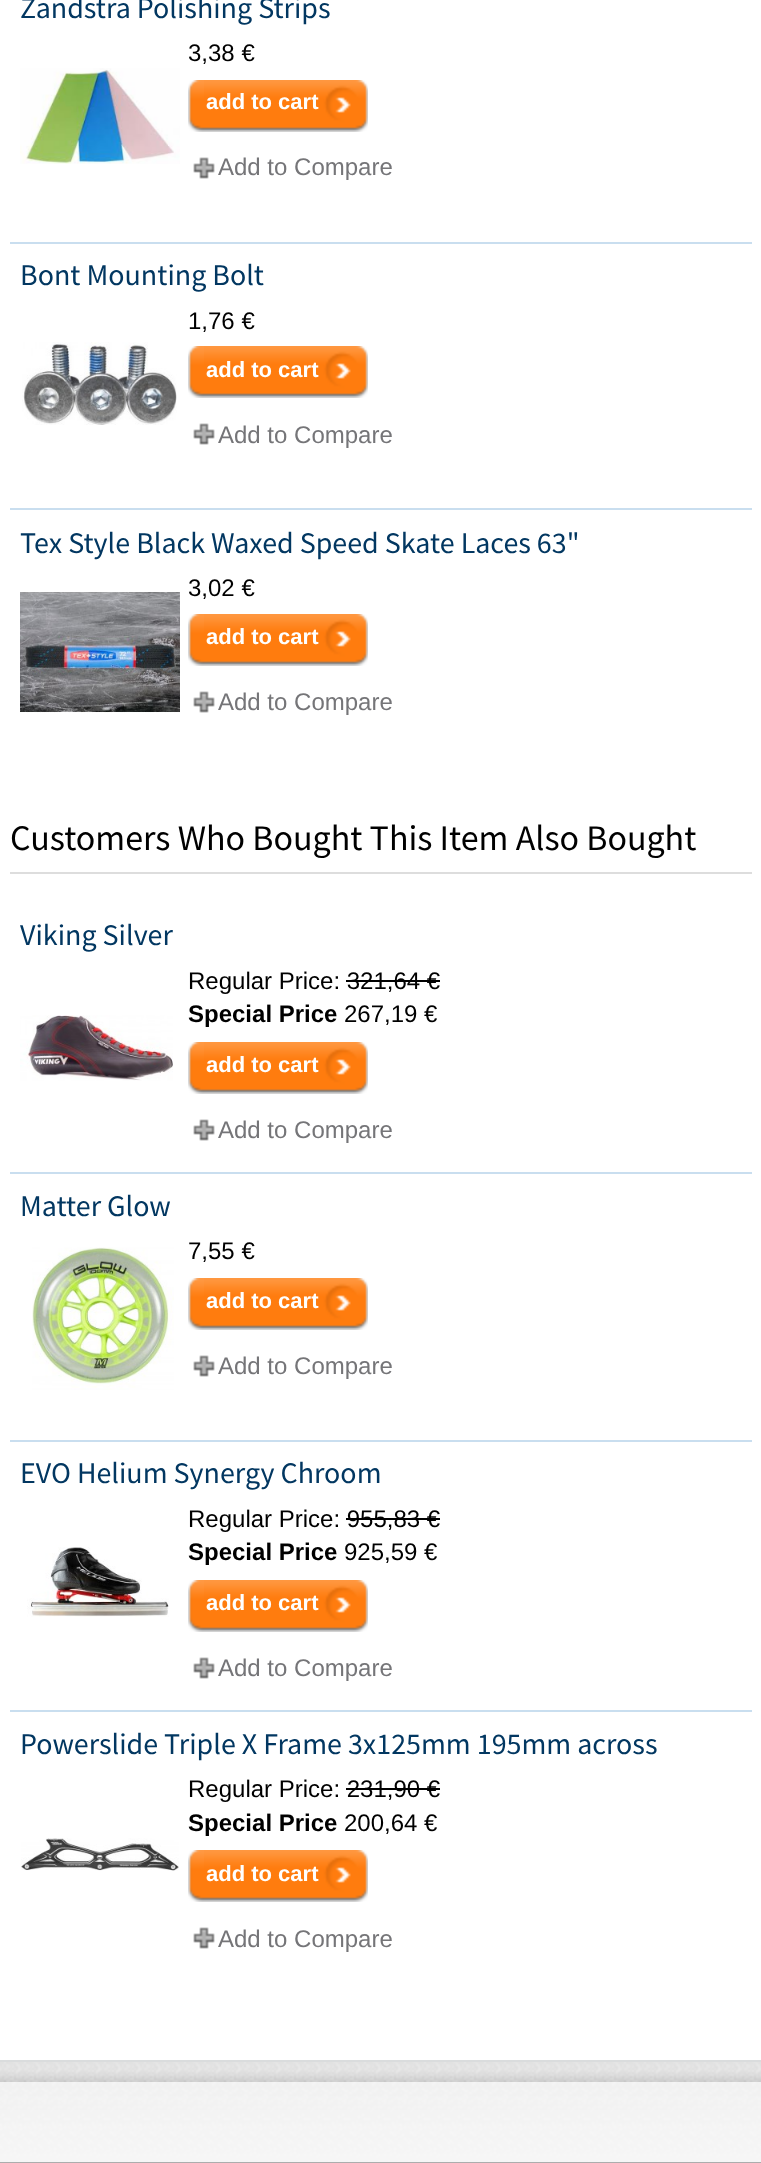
<?xml version="1.0" encoding="UTF-8"?>
<svg xmlns="http://www.w3.org/2000/svg" width="761" height="2163">
    <rect width="100%" height="100%" fill="#FFFFFF"/>
    <rect x="0" y="2060" width="761" height="2" fill="#DADCDD"/>
    <rect x="10" y="242" width="742" height="2" fill="#C9DEEF"/>
    <text x="20" y="18" font-family="Source Sans Pro" font-size="30" fill="#023761">Zandstra Polishing Strips</text>
    <text x="188" y="61" font-family="Liberation Sans" font-size="24" fill="#000000">3,38 €</text>
    <image x="20" y="68" width="160" height="96" href="img_01.png"/>
    <image x="188" y="80" width="16" height="52" href="img_02.png"/>
    <image x="204" y="80" width="164" height="52" href="img_03.png"/>
    <text x="206" y="109" font-family="Liberation Sans" font-size="22" font-weight="700" fill="#FFFFFF">add to cart</text>
    <image x="193" y="157" width="22" height="22" href="img_04.png"/>
    <text x="218" y="175" font-family="Liberation Sans" font-size="24" fill="#757578">Add to Compare</text>
    <rect x="10" y="508" width="742" height="2" fill="#C9DEEF"/>
    <text x="20" y="285" font-family="Source Sans Pro" font-size="30" fill="#023761">Bont Mounting Bolt</text>
    <text x="188" y="329" font-family="Liberation Sans" font-size="24" fill="#000000">1,76 €</text>
    <image x="22" y="342" width="155" height="83" href="img_05.png"/>
    <image x="188" y="346" width="16" height="52" href="img_02.png"/>
    <image x="204" y="346" width="164" height="52" href="img_03.png"/>
    <text x="206" y="377" font-family="Liberation Sans" font-size="22" font-weight="700" fill="#FFFFFF">add to cart</text>
    <image x="193" y="423" width="22" height="22" href="img_04.png"/>
    <text x="218" y="443" font-family="Liberation Sans" font-size="24" fill="#757578">Add to Compare</text>
    <text x="20" y="553" font-family="Source Sans Pro" font-size="30" fill="#023761">Tex Style Black Waxed Speed Skate Laces 63"</text>
    <text x="188" y="596" font-family="Liberation Sans" font-size="24" fill="#000000">3,02 €</text>
    <image x="20" y="592" width="160" height="121" href="img_06.png"/>
    <image x="188" y="614" width="16" height="52" href="img_02.png"/>
    <image x="204" y="614" width="164" height="52" href="img_03.png"/>
    <text x="206" y="644" font-family="Liberation Sans" font-size="22" font-weight="700" fill="#FFFFFF">add to cart</text>
    <image x="193" y="691" width="22" height="22" href="img_04.png"/>
    <text x="218" y="710" font-family="Liberation Sans" font-size="24" fill="#757578">Add to Compare</text>
    <rect x="10" y="872" width="742" height="2" fill="#DDDDDD"/>
    <text x="10" y="850" font-family="Source Sans Pro" font-size="36" fill="#000000">Customers Who Bought This Item Also Bought</text>
    <rect x="10" y="1172" width="742" height="2" fill="#C9DEEF"/>
    <text x="20" y="945" font-family="Source Sans Pro" font-size="30" fill="#023761">Viking Silver</text>
    <text x="188" y="989" font-family="Liberation Sans" font-size="24" fill="#000000">Regular Price: 321,64 €</text>
    <rect x="346" y="980" width="94" height="2" fill="#000000"/>
    <text x="188" y="1022" font-family="Liberation Sans" font-size="24" font-weight="700" fill="#000000">Special Price</text>
    <text x="344" y="1022" font-family="Liberation Sans" font-size="24" fill="#000000">267,19 €</text>
    <image x="20" y="1015" width="153" height="66" href="img_07.png"/>
    <image x="188" y="1042" width="16" height="52" href="img_02.png"/>
    <image x="204" y="1042" width="164" height="52" href="img_03.png"/>
    <text x="206" y="1072" font-family="Liberation Sans" font-size="22" font-weight="700" fill="#FFFFFF">add to cart</text>
    <image x="193" y="1119" width="22" height="22" href="img_04.png"/>
    <text x="218" y="1138" font-family="Liberation Sans" font-size="24" fill="#757578">Add to Compare</text>
    <rect x="10" y="1440" width="742" height="2" fill="#C9DEEF"/>
    <text x="20" y="1216" font-family="Source Sans Pro" font-size="30" fill="#023761">Matter Glow</text>
    <image x="32" y="1247" width="142" height="143" href="img_08.png"/>
    <text x="188" y="1259" font-family="Liberation Sans" font-size="24" fill="#000000">7,55 €</text>
    <image x="188" y="1278" width="16" height="52" href="img_02.png"/>
    <image x="204" y="1278" width="164" height="52" href="img_03.png"/>
    <text x="206" y="1308" font-family="Liberation Sans" font-size="22" font-weight="700" fill="#FFFFFF">add to cart</text>
    <image x="193" y="1355" width="22" height="22" href="img_04.png"/>
    <text x="218" y="1374" font-family="Liberation Sans" font-size="24" fill="#757578">Add to Compare</text>
    <rect x="10" y="1710" width="742" height="2" fill="#C9DEEF"/>
    <text x="20" y="1483" font-family="Source Sans Pro" font-size="30" fill="#023761">EVO Helium Synergy Chroom</text>
    <text x="188" y="1527" font-family="Liberation Sans" font-size="24" fill="#000000">Regular Price: 955,83 €</text>
    <rect x="346" y="1518" width="94" height="2" fill="#000000"/>
    <text x="188" y="1560" font-family="Liberation Sans" font-size="24" font-weight="700" fill="#000000">Special Price</text>
    <text x="344" y="1560" font-family="Liberation Sans" font-size="24" fill="#000000">925,59 €</text>
    <image x="27" y="1547" width="142" height="70" href="img_09.png"/>
    <image x="188" y="1580" width="16" height="52" href="img_02.png"/>
    <image x="204" y="1580" width="164" height="52" href="img_03.png"/>
    <text x="206" y="1610" font-family="Liberation Sans" font-size="22" font-weight="700" fill="#FFFFFF">add to cart</text>
    <image x="193" y="1657" width="22" height="22" href="img_04.png"/>
    <text x="218" y="1676" font-family="Liberation Sans" font-size="24" fill="#757578">Add to Compare</text>
    <text x="20" y="1754" font-family="Source Sans Pro" font-size="30" fill="#023761">Powerslide Triple X Frame 3x125mm 195mm across</text>
    <text x="188" y="1797" font-family="Liberation Sans" font-size="24" fill="#000000">Regular Price: 231,90 €</text>
    <rect x="346" y="1788" width="94" height="2" fill="#000000"/>
    <text x="188" y="1831" font-family="Liberation Sans" font-size="24" font-weight="700" fill="#000000">Special Price</text>
    <text x="344" y="1831" font-family="Liberation Sans" font-size="24" fill="#000000">200,64 €</text>
    <image x="21" y="1838" width="158" height="33" href="img_10.png"/>
    <image x="188" y="1850" width="16" height="52" href="img_02.png"/>
    <image x="204" y="1850" width="164" height="52" href="img_03.png"/>
    <text x="206" y="1881" font-family="Liberation Sans" font-size="22" font-weight="700" fill="#FFFFFF">add to cart</text>
    <image x="193" y="1927" width="22" height="22" href="img_04.png"/>
    <text x="218" y="1947" font-family="Liberation Sans" font-size="24" fill="#757578">Add to Compare</text>
    <image x="0" y="2062" width="761" height="20" href="img_11.png"/>
    <image x="0" y="2082" width="761" height="80" href="img_12.png"/>
    <rect x="0" y="2162" width="761" height="1" fill="#ADADAD"/>
</svg>
